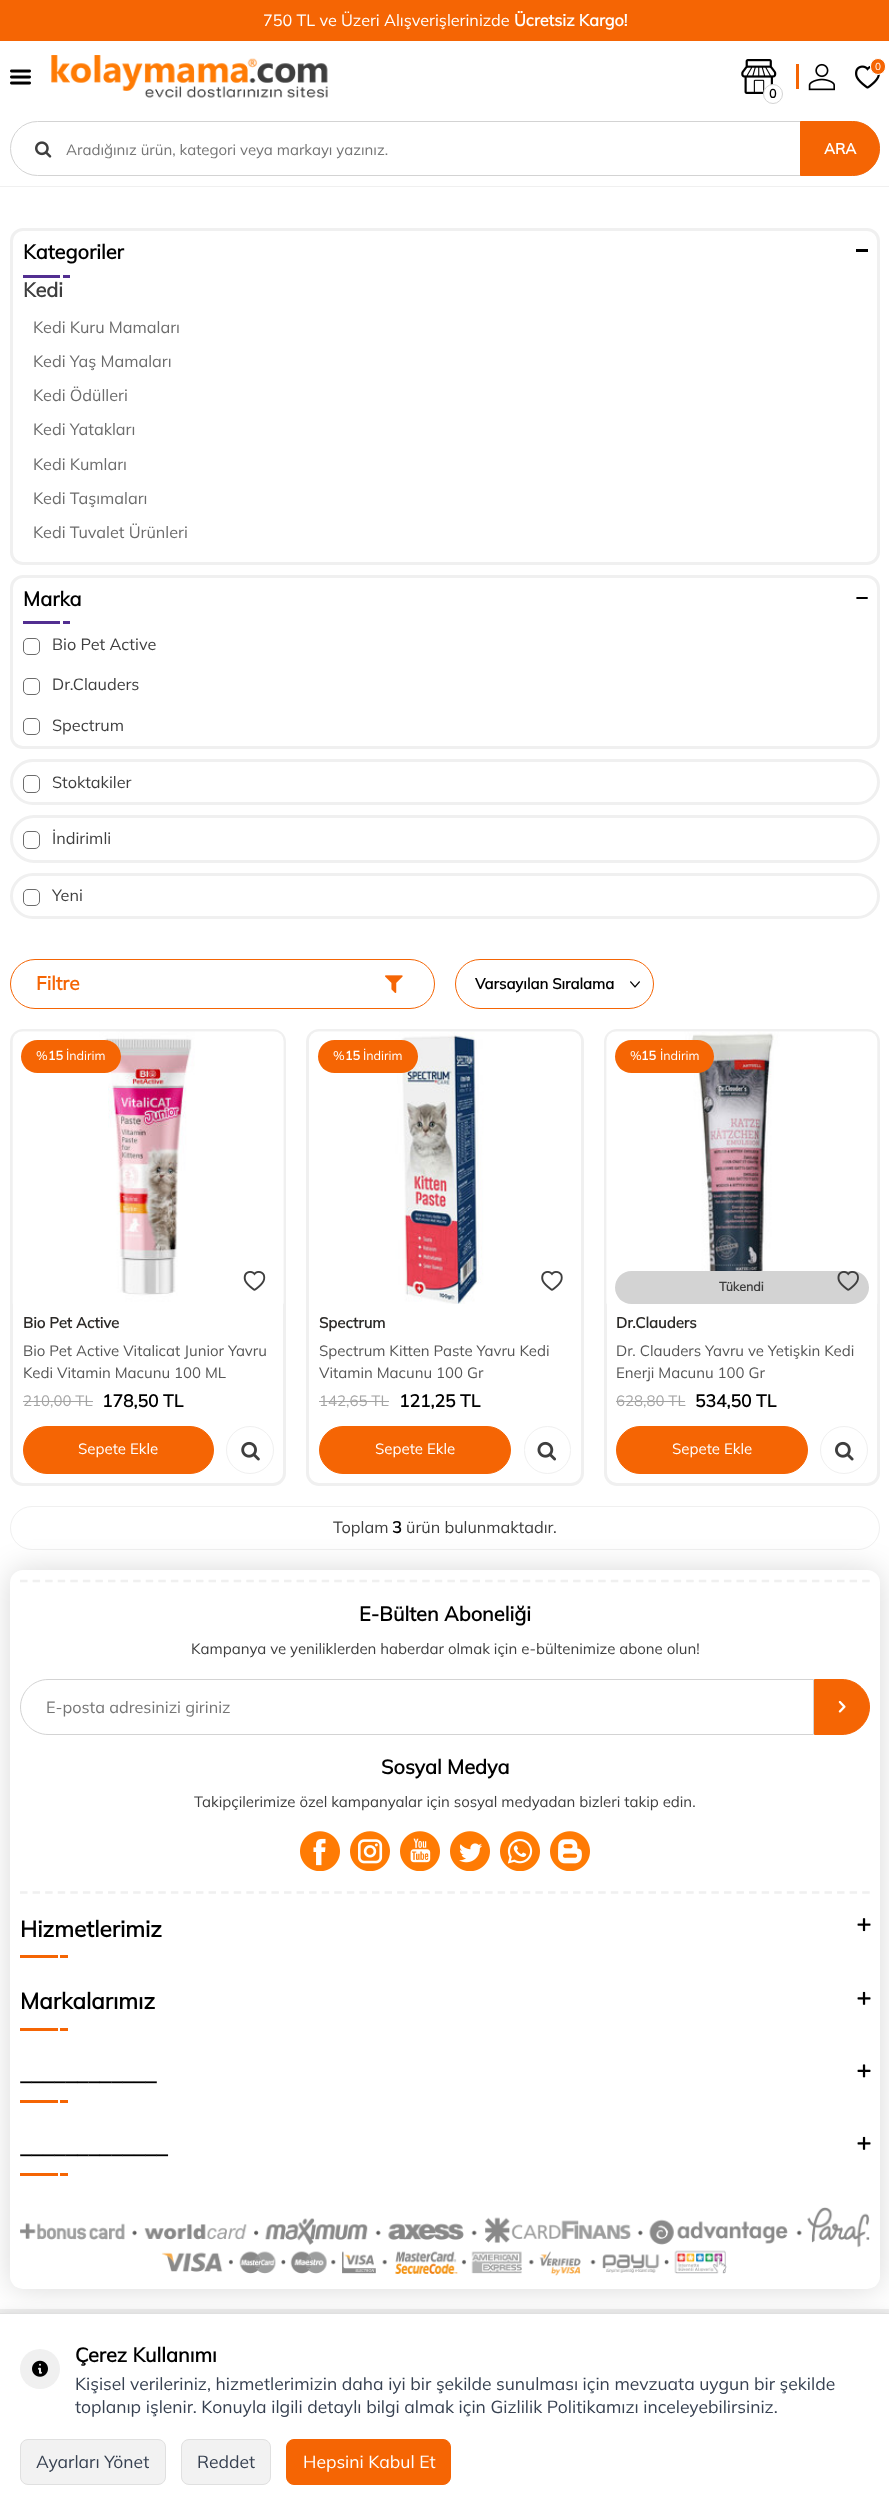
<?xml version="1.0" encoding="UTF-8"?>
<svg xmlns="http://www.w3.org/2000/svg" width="889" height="2514">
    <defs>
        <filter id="blur1" x="-50%" y="-200%" width="200%" height="500%"><feGaussianBlur stdDeviation="15.5"/></filter>
        <filter id="blur2" x="-50%" y="-200%" width="200%" height="500%"><feGaussianBlur stdDeviation="6"/></filter>
    </defs>
    <rect width="100%" height="100%" fill="#FFFFFF"/>
    <rect x="0" y="0" width="889" height="41" fill="#F56504"/>
    <text x="263" y="26" font-family="Mulish" font-size="16.25" font-weight="200" fill="#FFFFFF">750 TL ve Üzeri Alışverişlerinizde</text>
    <text x="514" y="26" font-family="Mulish" font-size="16.25" font-weight="700" fill="#FFFFFF">Ücretsiz Kargo!</text>
    <rect x="0" y="186" width="889" height="1" fill="#F0F0F0"/>
    <image x="10" y="69" width="21" height="16" href="img_01.png"/>
    <image x="51" y="55" width="277" height="43" href="img_02.png"/>
    <image x="808" y="63" width="27" height="28" href="img_03.png"/>
    <image x="855" y="65" width="25" height="24" href="img_04.png"/>
    <rect x="870.5" y="58.5" width="15" height="16" rx="7.5" fill="#F56504" stroke="#FFFFFF"/>
    <text x="875" y="70" font-family="Mulish" font-size="10" font-weight="200" fill="#FFFFFF">0</text>
    <rect x="796" y="64" width="3" height="25" fill="#F56504"/>
    <image x="741" y="59" width="36" height="35" href="img_05.png"/>
    <circle cx="773" cy="94" r="9.5" fill="#FFFFFF" stroke="#D3D3D3"/>
    <text x="769" y="98" font-family="Mulish" font-size="12.5" font-weight="700" fill="#000000">0</text>
    <rect x="10.5" y="121.5" width="869" height="54" rx="27" fill="none" stroke="#D3D3D3"/>
    <image x="35" y="141" width="17" height="17" href="img_06.png"/>
    <text x="66" y="155" font-family="Mulish" font-size="15" font-weight="200" fill="#757575">Aradığınız ürün, kategori veya markayı yazınız.</text>
    <path d="M 800.5 121.5 H 852.5 C 867.5 121.5 879.5 133.5 879.5 148.5 C 879.5 163.5 867.5 175.5 852.5 175.5 H 800.5 Z" fill="#F56504" stroke="#F56504"/>
    <text x="824" y="154" font-family="Mulish" font-size="15" font-weight="700" fill="#FFFFFF">ARA</text>
    <rect x="11.5" y="229.5" width="867" height="334" rx="11.5" fill="none" stroke="#F0F0F0" stroke-width="3"/>
    <text x="23" y="259" font-family="Mulish" font-size="20" font-weight="700" fill="#000000">Kategoriler</text>
    <rect x="856" y="249" width="12" height="3" fill="#000000"/>
    <rect x="23" y="275" width="37" height="3" fill="#522E91"/>
    <rect x="63" y="275" width="7" height="3" fill="#522E91"/>
    <text x="23" y="297" font-family="Mulish" font-size="20" font-weight="700" fill="#3E3E3E">Kedi</text>
    <text x="33" y="333" font-family="Mulish" font-size="16.25" font-weight="200" fill="#6C6C6C">Kedi Kuru Mamaları</text>
    <text x="33" y="367" font-family="Mulish" font-size="16.25" font-weight="200" fill="#6C6C6C">Kedi Yaş Mamaları</text>
    <text x="33" y="401" font-family="Mulish" font-size="16.25" font-weight="200" fill="#6C6C6C">Kedi Ödülleri</text>
    <text x="33" y="435" font-family="Mulish" font-size="16.25" font-weight="200" fill="#6C6C6C">Kedi Yatakları</text>
    <text x="33" y="470" font-family="Mulish" font-size="16.25" font-weight="200" fill="#6C6C6C">Kedi Kumları</text>
    <text x="33" y="504" font-family="Mulish" font-size="16.25" font-weight="200" fill="#6C6C6C">Kedi Taşımaları</text>
    <text x="33" y="538" font-family="Mulish" font-size="16.25" font-weight="200" fill="#6C6C6C">Kedi Tuvalet Ürünleri</text>
    <rect x="11.5" y="576.5" width="867" height="171" rx="11.5" fill="none" stroke="#F0F0F0" stroke-width="3"/>
    <text x="23" y="606" font-family="Mulish" font-size="20" font-weight="700" fill="#000000">Marka</text>
    <image x="856" y="597" width="12" height="2" href="img_07.png"/>
    <rect x="23" y="621" width="37" height="3" fill="#522E91"/>
    <rect x="63" y="621" width="7" height="3" fill="#522E91"/>
    <rect x="23.5" y="638.5" width="16" height="16" rx="4.5" fill="none" stroke="#6C6C6C"/>
    <text x="52" y="650" font-family="Mulish" font-size="16.25" font-weight="200" fill="#3E3E3E">Bio Pet Active</text>
    <rect x="23.5" y="678.5" width="16" height="16" rx="4.5" fill="none" stroke="#6C6C6C"/>
    <text x="52" y="690" font-family="Mulish" font-size="16.25" font-weight="200" fill="#3E3E3E">Dr.Clauders</text>
    <rect x="23.5" y="718.5" width="16" height="16" rx="4.5" fill="none" stroke="#6C6C6C"/>
    <text x="52" y="731" font-family="Mulish" font-size="16.25" font-weight="200" fill="#3E3E3E">Spectrum</text>
    <rect x="11.5" y="760.5" width="867" height="43" rx="21.5" fill="none" stroke="#F0F0F0" stroke-width="3"/>
    <rect x="23.5" y="775.5" width="16" height="17" rx="4.5" fill="none" stroke="#6C6C6C"/>
    <text x="52" y="788" font-family="Mulish" font-size="16.25" font-weight="200" fill="#3E3E3E">Stoktakiler</text>
    <rect x="11.5" y="816.5" width="867" height="45" rx="22.5" fill="none" stroke="#F0F0F0" stroke-width="3"/>
    <rect x="23.5" y="831.5" width="16" height="17" rx="4.5" fill="none" stroke="#6C6C6C"/>
    <text x="52" y="844" font-family="Mulish" font-size="16.25" font-weight="200" fill="#3E3E3E">İndirimli</text>
    <rect x="11.5" y="874.5" width="867" height="43" rx="21.5" fill="none" stroke="#F0F0F0" stroke-width="3"/>
    <rect x="23.5" y="889.5" width="16" height="16" rx="4.5" fill="none" stroke="#6C6C6C"/>
    <text x="52" y="901" font-family="Mulish" font-size="16.25" font-weight="200" fill="#3E3E3E">Yeni</text>
    <rect x="10.5" y="959.5" width="424" height="49" rx="24.5" fill="none" stroke="#F56504"/>
    <text x="36" y="990" font-family="Mulish" font-size="19" font-weight="700" fill="#F56504">Filtre</text>
    <image x="385" y="975" width="18" height="18" href="img_08.png"/>
    <image x="630" y="981" width="10" height="7" href="img_09.png"/>
    <rect x="455.5" y="959.5" width="198" height="49" rx="24.5" fill="none" stroke="#F56504"/>
    <text x="475" y="989" font-family="Mulish" font-size="15" font-weight="700" fill="#000000">Varsayılan Sıralama</text>
    <rect x="11.5" y="1030.5" width="273" height="454" rx="11.5" fill="none" stroke="#F0F0F0" stroke-width="3"/>
    <image x="12" y="1031" width="272" height="273" href="img_10.png"/>
    <rect x="21" y="1040" width="100" height="33" rx="16.5" fill="#F56504"/>
    <text x="36" y="1060" font-family="Mulish" font-size="12.5" font-weight="200" fill="#FFFFFF">%</text>
    <text x="48" y="1060" font-family="Mulish" font-size="12.5" font-weight="700" fill="#FFFFFF">15</text>
    <text x="66" y="1060" font-family="Mulish" font-size="12.5" font-weight="200" fill="#FFFFFF">İndirim</text>
    <image x="243" y="1271" width="23" height="20" href="img_11.png"/>
    <text x="23" y="1328" font-family="Mulish" font-size="15" font-weight="700" fill="#2C2A28">Bio Pet Active</text>
    <text font-family="Mulish" font-size="15" font-weight="200" fill="#565656">
        <tspan x="23" y="1356">Bio Pet Active Vitalicat Junior Yavru</tspan>
        <tspan x="23" y="1378">Kedi Vitamin Macunu 100 ML</tspan>
    </text>
    <text x="23" y="1406" font-family="Mulish" font-size="15" font-weight="200" fill="#A4A4A4">210,00 TL</text>
    <rect x="23" y="1401" width="70" height="1" fill="#A4A4A4"/>
    <text x="102" y="1407" font-family="Mulish" font-size="17.5" font-weight="700" fill="#000000">178,50 TL</text>
    <rect x="23.5" y="1426.5" width="190" height="47" rx="23.5" fill="#F56504" stroke="#F56504"/>
    <text x="78" y="1454" font-family="Mulish" font-size="15" font-weight="200" fill="#FFFFFF">Sepete Ekle</text>
    <circle cx="250" cy="1450" r="23.5" fill="none" stroke="#F0F0F0"/>
    <image x="241" y="1441" width="19" height="20" href="img_12.png"/>
    <rect x="307.5" y="1030.5" width="275" height="454" rx="11.5" fill="none" stroke="#F0F0F0" stroke-width="3"/>
    <image x="309" y="1031" width="272" height="273" href="img_13.png"/>
    <rect x="318" y="1040" width="100" height="33" rx="16.5" fill="#F56504"/>
    <text x="333" y="1060" font-family="Mulish" font-size="12.5" font-weight="200" fill="#FFFFFF">%</text>
    <text x="345" y="1060" font-family="Mulish" font-size="12.5" font-weight="700" fill="#FFFFFF">15</text>
    <text x="363" y="1060" font-family="Mulish" font-size="12.5" font-weight="200" fill="#FFFFFF">İndirim</text>
    <image x="541" y="1271" width="22" height="20" href="img_14.png"/>
    <text x="319" y="1328" font-family="Mulish" font-size="15" font-weight="700" fill="#2C2A28">Spectrum</text>
    <text font-family="Mulish" font-size="15" font-weight="200" fill="#565656">
        <tspan x="319" y="1356">Spectrum Kitten Paste Yavru Kedi</tspan>
        <tspan x="319" y="1378">Vitamin Macunu 100 Gr</tspan>
    </text>
    <text x="319" y="1406" font-family="Mulish" font-size="15" font-weight="200" fill="#A4A4A4">142,65 TL</text>
    <rect x="319" y="1401" width="70" height="1" fill="#A4A4A4"/>
    <text x="399" y="1407" font-family="Mulish" font-size="17.5" font-weight="700" fill="#000000">121,25 TL</text>
    <rect x="319.5" y="1426.5" width="191" height="47" rx="23.5" fill="#F56504" stroke="#F56504"/>
    <text x="375" y="1454" font-family="Mulish" font-size="15" font-weight="200" fill="#FFFFFF">Sepete Ekle</text>
    <rect x="524.5" y="1426.5" width="46" height="47" rx="23" fill="none" stroke="#F0F0F0"/>
    <image x="537" y="1441" width="19" height="20" href="img_15.png"/>
    <rect x="605.5" y="1030.5" width="273" height="454" rx="11.5" fill="none" stroke="#F0F0F0" stroke-width="3"/>
    <image x="606" y="1031" width="272" height="273" href="img_16.png"/>
    <rect x="615" y="1040" width="99" height="33" rx="16.5" fill="#F56504"/>
    <text x="630" y="1060" font-family="Mulish" font-size="12.5" font-weight="200" fill="#FFFFFF">%</text>
    <text x="641" y="1060" font-family="Mulish" font-size="12.5" font-weight="700" fill="#FFFFFF">15</text>
    <text x="660" y="1060" font-family="Mulish" font-size="12.5" font-weight="200" fill="#FFFFFF">İndirim</text>
    <rect x="615" y="1271" width="254" height="33" rx="16.5" fill="#D3D3D3"/>
    <text x="719" y="1291" font-family="Mulish" font-size="12.5" font-weight="700" fill="#3E3E3E">Tükendi</text>
    <image x="837" y="1271" width="22" height="20" href="img_17.png"/>
    <text x="616" y="1328" font-family="Mulish" font-size="15" font-weight="700" fill="#2C2A28">Dr.Clauders</text>
    <text font-family="Mulish" font-size="15" font-weight="200" fill="#565656">
        <tspan x="616" y="1356">Dr. Clauders Yavru ve Yetişkin Kedi</tspan>
        <tspan x="616" y="1378">Enerji Macunu 100 Gr</tspan>
    </text>
    <text x="616" y="1406" font-family="Mulish" font-size="15" font-weight="200" fill="#A4A4A4">628,80 TL</text>
    <rect x="616" y="1401" width="69" height="1" fill="#A4A4A4"/>
    <text x="695" y="1407" font-family="Mulish" font-size="17.5" font-weight="700" fill="#000000">534,50 TL</text>
    <rect x="616.5" y="1426.5" width="191" height="47" rx="23.5" fill="#F56504" stroke="#F56504"/>
    <text x="672" y="1454" font-family="Mulish" font-size="15" font-weight="200" fill="#FFFFFF">Sepete Ekle</text>
    <circle cx="844" cy="1450" r="23.5" fill="none" stroke="#F0F0F0"/>
    <image x="835" y="1441" width="19" height="20" href="img_18.png"/>
    <rect x="10.5" y="1506.5" width="869" height="43" rx="21.5" fill="none" stroke="#F0F0F0"/>
    <text x="333" y="1533" font-family="Mulish" font-size="16.25" font-weight="200" fill="#3E3E3E">Toplam</text>
    <text x="392" y="1533" font-family="Mulish" font-size="16.25" font-weight="700" fill="#000000">3</text>
    <text x="406" y="1533" font-family="Mulish" font-size="16.25" font-weight="200" fill="#3E3E3E">ürün bulunmaktadır.</text>
    <rect x="0" y="2309" width="889" height="4" fill="#F0F0F0"/>
    <rect x="10" y="1570" width="870" height="719" rx="13" fill="#000000" fill-opacity="0.15" filter="url(#blur1)"/>
    <rect x="10" y="1570" width="870" height="719" rx="13" fill="#FFFFFF"/>
    <path d="M 20 1581 H 870" fill="none" stroke="#F0F0F0" stroke-width="2.5" stroke-dasharray="7.5 5.07"/>
    <path d="M 20 1892.5 H 870" fill="none" stroke="#F0F0F0" stroke-width="2.5" stroke-dasharray="7.5 5.07"/>
    <text x="359" y="1621" font-family="Mulish" font-size="20" font-weight="700" fill="#000000">E-Bülten Aboneliği</text>
    <text x="191" y="1654" font-family="Mulish" font-size="15" font-weight="200" fill="#3E3E3E">Kampanya ve yeniliklerden haberdar olmak için e-bültenimize abone olun!</text>
    <path d="M 48 1679.5 H 813.5 V 1734.5 H 48 C 33 1734.5 20.5 1722 20.5 1707 C 20.5 1692 33 1679.5 48 1679.5 Z" fill="none" stroke="#D3D3D3"/>
    <text x="46" y="1713" font-family="Mulish" font-size="16.25" font-weight="200" fill="#757575">E-posta adresinizi giriniz</text>
    <path d="M 814.5 1679.5 H 842 C 857 1679.5 869.5 1692 869.5 1707 C 869.5 1722 857 1734.5 842 1734.5 H 814.5 Z" fill="#F56504" stroke="#F56504"/>
    <image x="838" y="1700" width="8" height="13" href="img_19.png"/>
    <text x="381" y="1774" font-family="Mulish" font-size="20" font-weight="700" fill="#000000">Sosyal Medya</text>
    <text x="194" y="1807" font-family="Mulish" font-size="15" font-weight="200" fill="#3E3E3E">Takipçilerimize özel kampanyalar için sosyal medyadan bizleri takip edin.</text>
    <image x="300" y="1831" width="40" height="40" href="img_20.png"/>
    <image x="350" y="1831" width="40" height="40" href="img_21.png"/>
    <image x="400" y="1831" width="40" height="40" href="img_22.png"/>
    <image x="450" y="1831" width="40" height="40" href="img_23.png"/>
    <image x="500" y="1831" width="40" height="40" href="img_24.png"/>
    <image x="550" y="1831" width="40" height="40" href="img_25.png"/>
    <text x="20" y="1937" font-family="Mulish" font-size="22.5" font-weight="700" fill="#000000">Hizmetlerimiz</text>
    <image x="857" y="1918" width="14" height="14" href="img_26.png"/>
    <rect x="20" y="1955" width="38" height="3" fill="#F56504"/>
    <rect x="60" y="1955" width="8" height="3" fill="#F56504"/>
    <text x="20" y="2009" font-family="Mulish" font-size="22.5" font-weight="700" fill="#000000">Markalarımız</text>
    <image x="857" y="1991" width="14" height="14" href="img_27.png"/>
    <rect x="20" y="2028" width="38" height="3" fill="#F56504"/>
    <rect x="60" y="2028" width="8" height="3" fill="#F56504"/>
    <image x="857" y="2064" width="14" height="14" href="img_28.png"/>
    <text x="20" y="2082" font-family="Mulish" font-size="22.5" font-weight="700" fill="#000000">____________</text>
    <rect x="20" y="2100" width="38" height="3" fill="#F56504"/>
    <rect x="60" y="2100" width="8" height="3" fill="#F56504"/>
    <image x="857" y="2136" width="14" height="14" href="img_27.png"/>
    <text x="20" y="2155" font-family="Mulish" font-size="22.5" font-weight="700" fill="#000000">_____________</text>
    <rect x="20" y="2173" width="38" height="3" fill="#F56504"/>
    <rect x="60" y="2173" width="8" height="3" fill="#F56504"/>
    <image x="20" y="2207" width="850" height="69" href="img_29.png"/>
    <rect x="0" y="2313" width="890" height="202" fill="#000000" fill-opacity="0.1" filter="url(#blur2)"/>
    <rect x="0" y="2314" width="889" height="200" fill="#FFFFFF"/>
    <rect x="0" y="2313" width="889" height="1" fill="#E0E0E0"/>
    <circle cx="40" cy="2369" r="20" fill="#F0F0F0"/>
    <image x="32" y="2360" width="16" height="17" href="img_30.png"/>
    <text x="75" y="2362" font-family="Mulish" font-size="20" font-weight="700" fill="#000000">Çerez Kullanımı</text>
    <text font-family="Mulish" font-size="17.5" font-weight="200" fill="#374151">
        <tspan x="75" y="2390">Kişisel verileriniz, hizmetlerimizin daha iyi bir şekilde sunulması için mevzuata uygun bir şekilde</tspan>
        <tspan x="75" y="2413" word-spacing="0.1">toplanıp işlenir. Konuyla ilgili detaylı bilgi almak için Gizlilik Politikamızı inceleyebilirsiniz.</tspan>
    </text>
    <rect x="20.5" y="2439.5" width="145" height="45" rx="7.5" fill="#F2F2F2" stroke="#E0E0E0"/>
    <text x="36" y="2468" font-family="Mulish" font-size="17.5" font-weight="200" fill="#374151">Ayarları Yönet</text>
    <rect x="181.5" y="2439.5" width="89" height="45" rx="7.5" fill="#F2F2F2" stroke="#E0E0E0"/>
    <text x="197" y="2468" font-family="Mulish" font-size="17.5" font-weight="200" fill="#374151">Reddet</text>
    <rect x="286.5" y="2439.5" width="164" height="45" rx="7.5" fill="#F56504" stroke="#F56504"/>
    <text x="303" y="2468" font-family="Mulish" font-size="17.5" font-weight="200" fill="#FFFFFF">Hepsini Kabul Et</text>
</svg>
